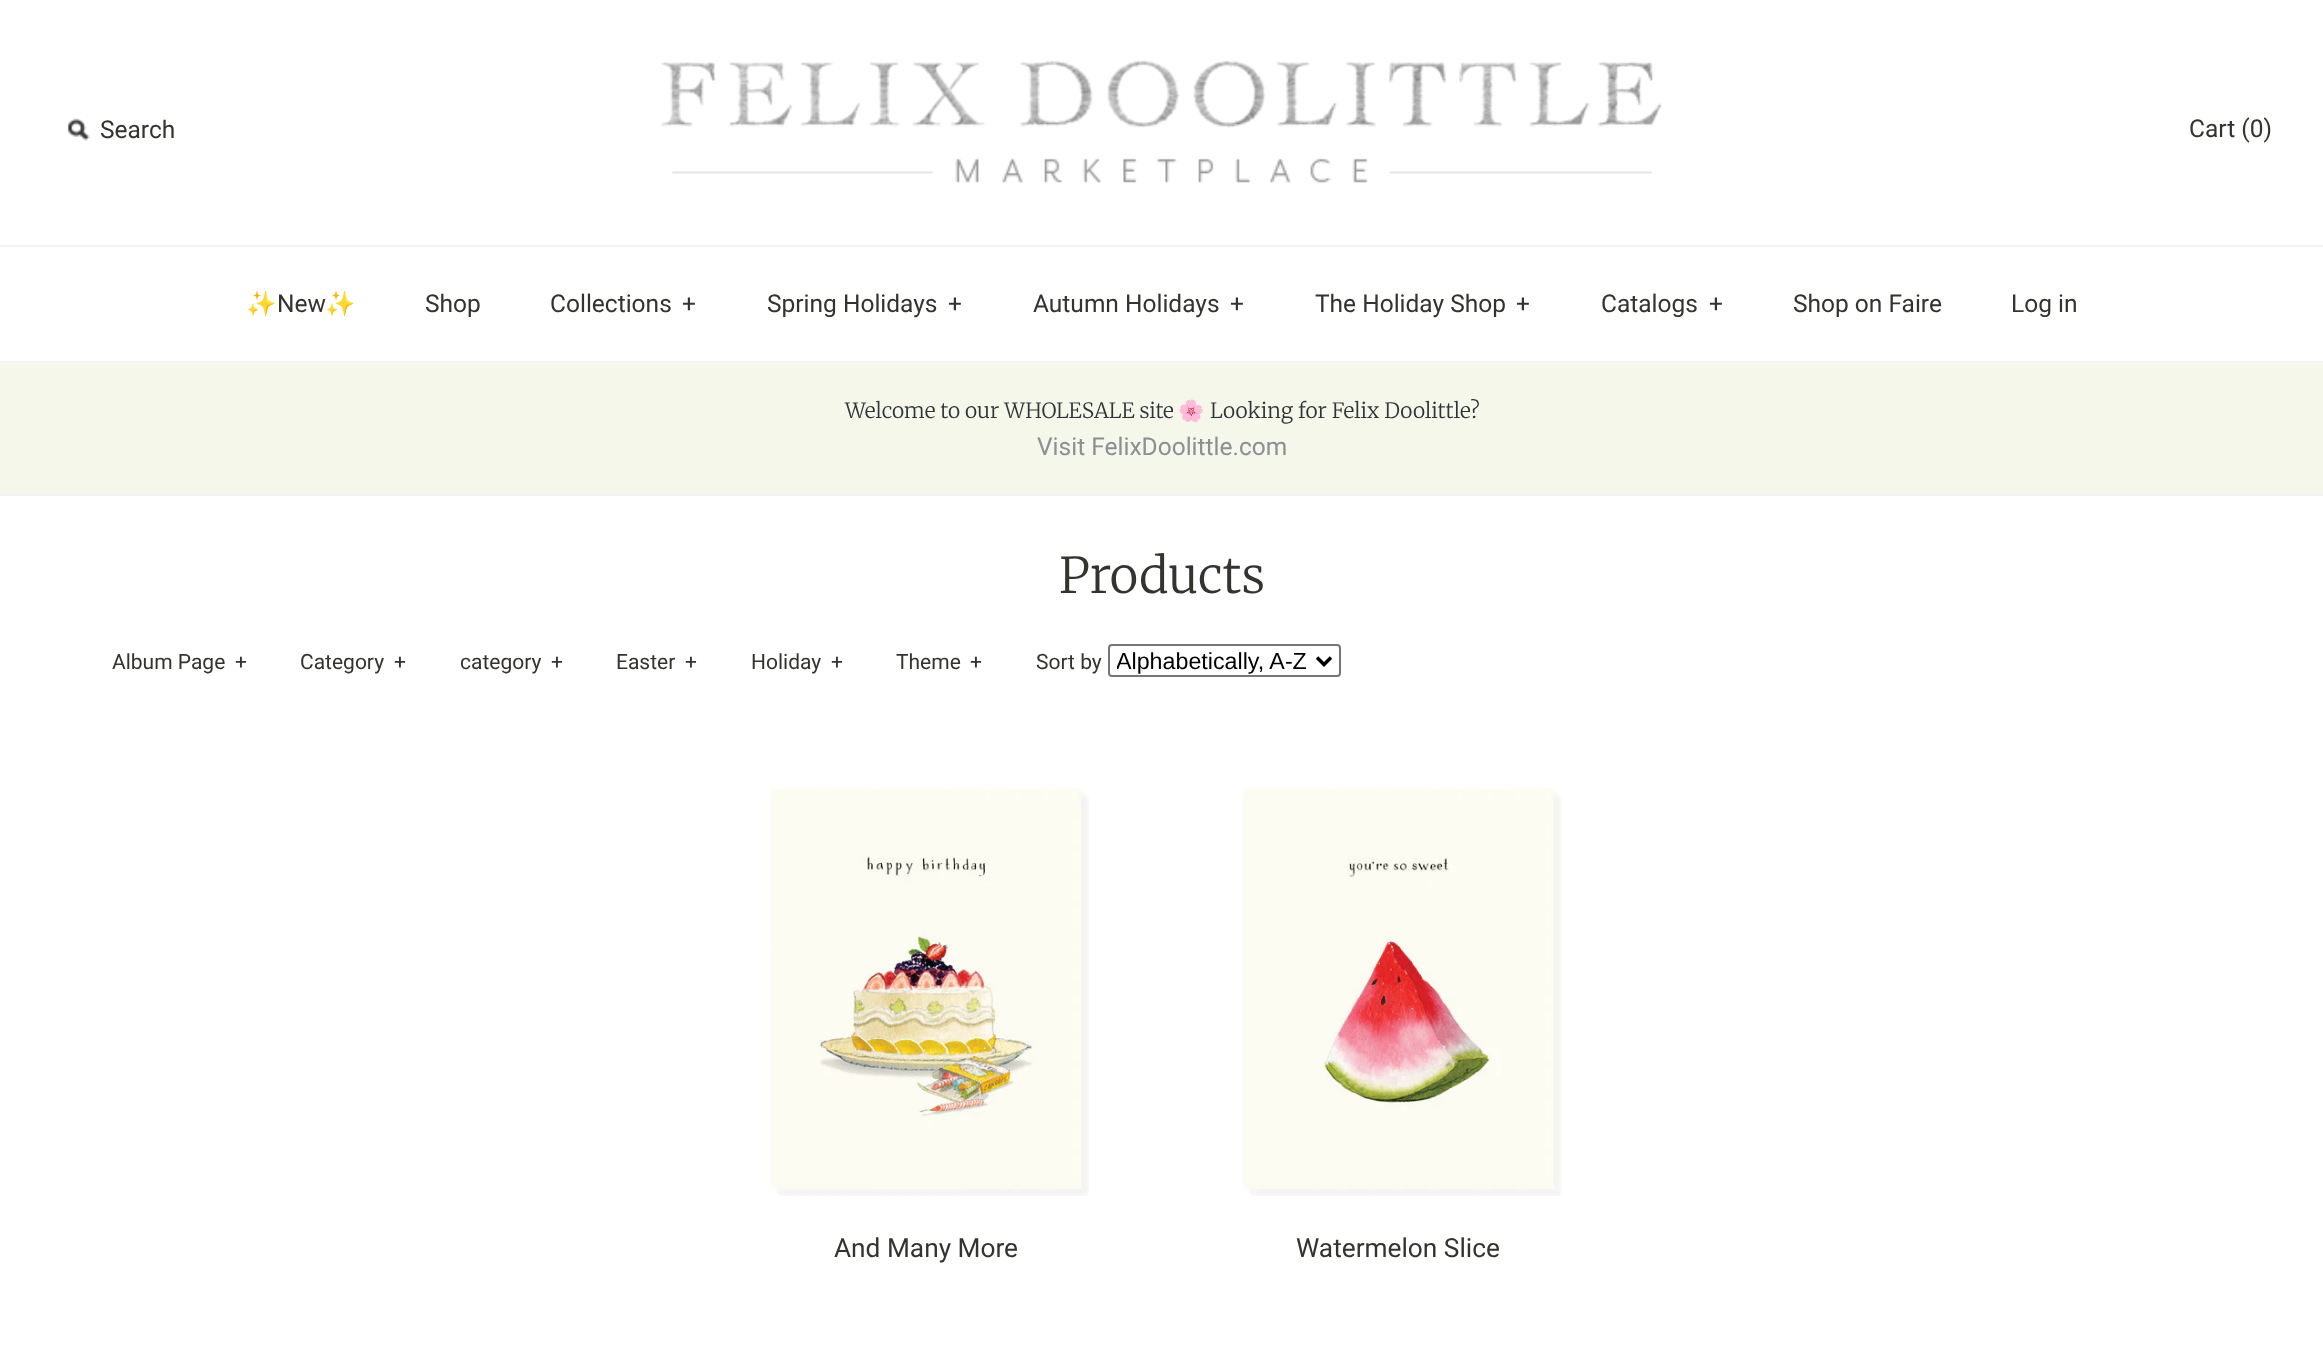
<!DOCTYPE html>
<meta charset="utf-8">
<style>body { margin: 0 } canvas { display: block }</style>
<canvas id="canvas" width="2323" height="1368"></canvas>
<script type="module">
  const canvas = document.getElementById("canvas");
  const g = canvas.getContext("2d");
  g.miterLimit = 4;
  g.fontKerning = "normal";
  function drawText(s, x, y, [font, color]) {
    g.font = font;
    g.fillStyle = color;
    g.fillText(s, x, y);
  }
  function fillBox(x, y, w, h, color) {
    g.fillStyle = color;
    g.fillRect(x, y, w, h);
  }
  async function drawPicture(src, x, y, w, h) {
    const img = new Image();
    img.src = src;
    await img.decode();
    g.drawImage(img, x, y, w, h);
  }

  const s1 = ["24.5px Roboto", "#353330"];
  const s2 = ["24.5px Noto Color Emoji", "#353330"];
  const s3 = ["300 21px Merriweather", "#2E3438"];
  const s4 = ["21px Noto Color Emoji", "#2E3438"];
  const s5 = ["24.5px Roboto", "#8A8F93"];
  const s6 = ["300 49px Merriweather", "#353330"];
  const s7 = ["21px Roboto", "#353330"];
  const s8 = ["23.25px Liberation Sans", "#000000"];
  const s9 = ["26.25px Roboto", "#353330"];

  fillBox(0, 0, 2323, 1368, "#F2F2F2");
  fillBox(0, 0, 2323, 245, "#FFFFFF");
  await drawPicture("pic1.png", 661, 60, 1001, 123);
  await drawPicture("pic2.png", 67, 118, 23, 23);
  drawText("Search", 100, 138, s1);
  drawText("Cart (0)", 2189, 137, s1);
  fillBox(0, 247, 2323, 114, "#FFFFFF");
  drawText("✨", 246, 312, s2);
  drawText("New", 277, 312, s1);
  drawText("✨", 325, 312, s2);
  drawText("Shop", 425, 312, s1);
  drawText("Collections", 550, 312, s1);
  drawText("+", 682, 312, s1);
  drawText("Spring Holidays", 767, 312, s1);
  drawText("+", 948, 312, s1);
  drawText("Autumn Holidays", 1033, 312, s1);
  drawText("+", 1230, 312, s1);
  drawText("The Holiday Shop", 1315, 312, s1);
  drawText("+", 1516, 312, s1);
  drawText("Catalogs", 1601, 312, s1);
  drawText("+", 1709, 312, s1);
  drawText("Shop on Faire", 1793, 312, s1);
  drawText("Log in", 2011, 312, s1);
  fillBox(0, 496, 2323, 872, "#FFFFFF");
  fillBox(0, 362, 2323, 132, "#F6F7EB");
  drawText("Welcome to our WHOLESALE site", 845, 418, s3);
  drawText("🌸", 1178, 418, s4);
  drawText("Looking for Felix Doolittle?", 1210, 418, s3);
  drawText("Visit FelixDoolittle.com", 1037, 455, s5);
  drawText("Products", 1059, 593, s6);
  drawText("Album Page", 112, 669, s7);
  drawText("+", 235, 669, s7);
  drawText("Category", 300, 669, s7);
  drawText("+", 394, 669, s7);
  drawText("category", 460, 669, s7);
  drawText("+", 551, 669, s7);
  drawText("Easter", 616, 669, s7);
  drawText("+", 685, 669, s7);
  drawText("Holiday", 751, 669, s7);
  drawText("+", 831, 669, s7);
  drawText("Theme", 896, 669, s7);
  drawText("+", 970, 669, s7);
  drawText("Sort by", 1036, 669, s7);
  g.beginPath();
  g.roundRect(1109, 645, 231, 31, 3);
  g.strokeStyle = "#767676";
  g.lineWidth = 2;
  g.stroke();
  g.beginPath();
  g.moveTo(1317, 657.5);
  g.lineTo(1324, 664.5);
  g.lineTo(1331, 657.5);
  g.strokeStyle = "#000000";
  g.lineWidth = 3.5;
  g.stroke();
  g.save();
  g.beginPath();
  g.rect(1117, 646, 194, 30);
  g.clip();
  drawText("Alphabetically, A-Z", 1116, 669, s8);
  g.restore();
  await drawPicture("pic3.png", 765, 785, 324, 411);
  drawText("And Many More", 834, 1257, s9);
  await drawPicture("pic4.png", 1238, 785, 324, 411);
  drawText("Watermelon Slice", 1296, 1257, s9);
</script>
